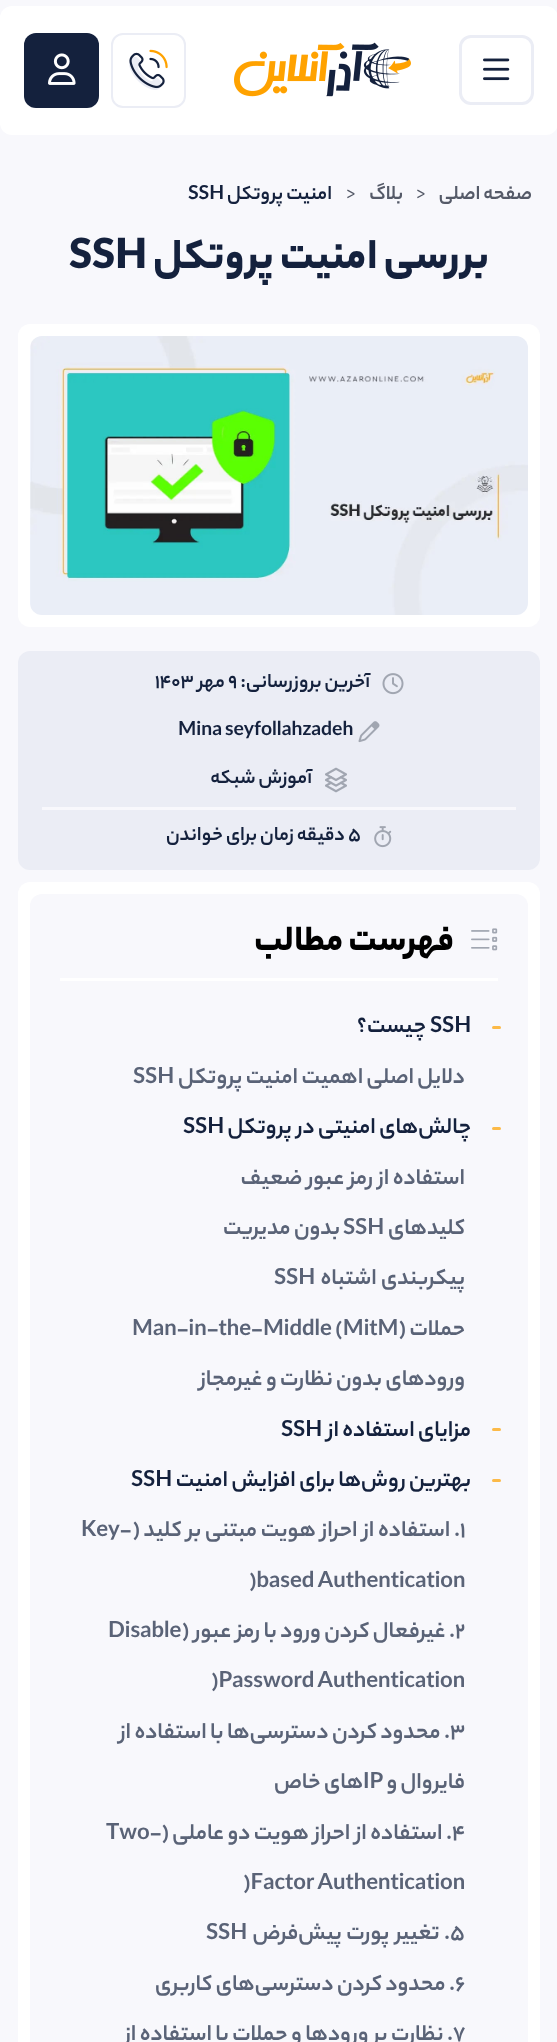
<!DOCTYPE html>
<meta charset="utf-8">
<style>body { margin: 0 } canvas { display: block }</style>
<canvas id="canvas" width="557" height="2042"></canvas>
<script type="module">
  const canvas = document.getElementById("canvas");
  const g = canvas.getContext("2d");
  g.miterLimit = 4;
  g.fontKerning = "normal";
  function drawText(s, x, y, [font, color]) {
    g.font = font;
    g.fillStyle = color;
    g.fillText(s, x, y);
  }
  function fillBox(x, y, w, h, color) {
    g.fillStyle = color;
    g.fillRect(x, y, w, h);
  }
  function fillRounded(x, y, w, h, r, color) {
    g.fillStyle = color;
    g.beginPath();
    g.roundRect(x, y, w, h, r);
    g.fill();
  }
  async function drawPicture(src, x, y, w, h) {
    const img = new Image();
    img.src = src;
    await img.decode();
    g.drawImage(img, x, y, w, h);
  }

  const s1 = ["bold 21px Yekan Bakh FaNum", "#555A68"];
  const s2 = ["21px Yekan Bakh FaNum", "#555A68"];
  const s3 = ["bold 21px Yekan Bakh FaNum", "#14213D"];
  const s4 = ["900 45px Yekan Bakh FaNum", "#14213D"];
  const s5 = ["900 37.5px Yekan Bakh FaNum", "#000000"];
  const s6 = ["bold 24px Yekan Bakh FaNum", "#14213D"];
  const s7 = ["bold 24px Yekan Bakh FaNum", "#5A6377"];

  fillBox(0, 0, 557, 2042, "#F8F8FC");
  fillRounded(0, 6, 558, 129, 12, "#FFFFFF");
  g.beginPath();
  g.roundRect(460.5, 36.5, 72, 67, 10.5);
  g.strokeStyle = "#EBEDF5";
  g.lineWidth = 3;
  g.stroke();
  await drawPicture("pic1.png", 483, 58, 27, 23);
  await drawPicture("pic2.png", 234, 42, 177, 55);
  g.beginPath();
  g.roundRect(112, 34, 73, 73, 11);
  g.lineWidth = 2;
  g.stroke();
  await drawPicture("pic3.png", 129, 49, 39, 41);
  fillRounded(24, 33, 75, 75, 12, "#14213D");
  await drawPicture("pic4.png", 48, 53, 28, 32);
  g.direction = "rtl";
  drawText("صفحه اصلی", 532, 199, s1);
  g.direction = "ltr";
  drawText(">", 416, 198, s2);
  g.direction = "rtl";
  drawText("بلاگ", 403, 199, s1);
  g.direction = "ltr";
  drawText(">", 346, 198, s2);
  g.direction = "rtl";
  drawText("امنیت پروتکل", 332, 199, s3);
  g.direction = "ltr";
  drawText("SSH", 188, 199, s3);
  g.direction = "rtl";
  drawText("بررسی امنیت پروتکل", 489, 268, s4);
  g.direction = "ltr";
  drawText("SSH", 69, 268, s4);
  fillRounded(18, 324, 522, 303, 12, "#FFFFFF");
  await drawPicture("pic5.png", 30, 336, 498, 279);
  fillRounded(18, 651, 522, 219, 12, "#EBEDF5");
  await drawPicture("pic6.png", 382, 673, 22, 22);
  g.direction = "rtl";
  drawText("آخرین بروزرسانی:", 370, 687, s3);
  g.direction = "ltr";
  drawText("۹", 228, 687, s3);
  g.direction = "rtl";
  drawText("مهر", 225, 687, s3);
  g.direction = "ltr";
  drawText("۱۴۰۳", 155, 687, s3);
  await drawPicture("pic7.png", 358, 721, 22, 22);
  drawText("Mina seyfollahzadeh", 178, 735, s3);
  await drawPicture("pic8.png", 325, 767, 22, 26);
  g.direction = "rtl";
  drawText("آموزش شبکه", 312, 783, s3);
  fillBox(42, 807, 474, 3, "#F8F8FC");
  await drawPicture("pic9.png", 374, 826, 18, 22);
  g.direction = "ltr";
  drawText("5", 348, 840, s3);
  g.direction = "rtl";
  drawText("دقیقه زمان برای خواندن", 345, 840, s3);
  fillRounded(18, 882, 522, 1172, 12, "#FFFFFF");
  fillRounded(30, 894, 498, 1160, 12, "#F8F8FC");
  fillBox(60, 978, 438, 3, "#FFFFFF");
  await drawPicture("pic10.png", 471, 928, 27, 23);
  drawText("فهرست مطالب", 454, 950, s5);
  fillRounded(492, 1026, 9, 3, 1.5, "#FCBA48");
  g.direction = "ltr";
  drawText("SSH", 430, 1032, s6);
  g.direction = "rtl";
  drawText("چیست؟", 426, 1032, s6);
  drawText("دلایل اصلی اهمیت امنیت پروتکل", 465, 1083, s7);
  g.direction = "ltr";
  drawText("SSH", 133, 1083, s7);
  fillRounded(492, 1127, 9, 3, 1.5, "#FCBA48");
  g.direction = "rtl";
  drawText("چالش‌های امنیتی در پروتکل", 471, 1133, s6);
  g.direction = "ltr";
  drawText("SSH", 183, 1133, s6);
  g.direction = "rtl";
  drawText("استفاده از رمز عبور ضعیف", 465, 1184, s7);
  drawText("کلیدهای", 465, 1234, s7);
  g.direction = "ltr";
  drawText("SSH", 343, 1234, s7);
  g.direction = "rtl";
  drawText("بدون مدیریت", 340, 1234, s7);
  g.wordSpacing = "1px";
  drawText("پیکربندی اشتباه", 465, 1284, s7);
  g.wordSpacing = "0px";
  g.direction = "ltr";
  drawText("SSH", 274, 1284, s7);
  g.direction = "rtl";
  drawText("حملات", 465, 1335, s7);
  g.direction = "ltr";
  drawText("Man-in-the-Middle (MitM)", 132, 1335, s7);
  g.direction = "rtl";
  drawText("ورودهای بدون نظارت و غیرمجاز", 465, 1385, s7);
  fillRounded(492, 1428, 9, 3, 1.5, "#FCBA48");
  drawText("مزایای استفاده از", 471, 1436, s6);
  g.direction = "ltr";
  drawText("SSH", 281, 1436, s6);
  fillRounded(492, 1479, 9, 3, 1.5, "#FCBA48");
  g.direction = "rtl";
  drawText("بهترین روش‌ها برای افزایش امنیت", 471, 1486, s6);
  g.direction = "ltr";
  drawText("SSH", 131, 1486, s6);
  drawText("1", 460, 1536, s7);
  g.wordSpacing = "0.25px";
  g.direction = "rtl";
  drawText(". استفاده از احراز هویت مبتنی بر کلید (", 460, 1536, s7);
  g.wordSpacing = "0px";
  g.direction = "ltr";
  drawText("Key-", 81, 1536, s7);
  drawText(")based Authentication", 249, 1587, s7);
  drawText("2", 455, 1637, s7);
  g.direction = "rtl";
  drawText(". غیرفعال کردن ورود با رمز عبور (", 455, 1637, s7);
  g.direction = "ltr";
  drawText("Disable", 108, 1637, s7);
  drawText(")Password Authentication", 211, 1687, s7);
  drawText("3", 450, 1738, s7);
  g.direction = "rtl";
  drawText(". محدود کردن دسترسی‌ها با استفاده از", 450, 1738, s7);
  drawText("فایروال و", 465, 1788, s7);
  g.direction = "ltr";
  drawText("IP", 363, 1788, s7);
  g.direction = "rtl";
  drawText("های خاص", 363, 1788, s7);
  g.direction = "ltr";
  drawText("4", 452, 1839, s7);
  g.direction = "rtl";
  drawText(". استفاده از احراز هویت دو عاملی (", 452, 1839, s7);
  g.direction = "ltr";
  drawText("Two-", 106, 1839, s7);
  drawText(")Factor Authentication", 243, 1889, s7);
  drawText("5", 450, 1939, s7);
  g.wordSpacing = "1px";
  g.direction = "rtl";
  drawText(". تغییر پورت پیش‌فرض", 450, 1939, s7);
  g.wordSpacing = "0px";
  g.direction = "ltr";
  drawText("SSH", 206, 1939, s7);
  drawText("6", 455, 1990, s7);
  g.direction = "rtl";
  drawText(". محدود کردن دسترسی‌های کاربری", 455, 1990, s7);
  g.direction = "ltr";
  drawText("7", 453, 2040, s7);
  g.direction = "rtl";
  drawText(". نظارت بر ورودها و حملات با استفاده از", 453, 2040, s7);
</script>
